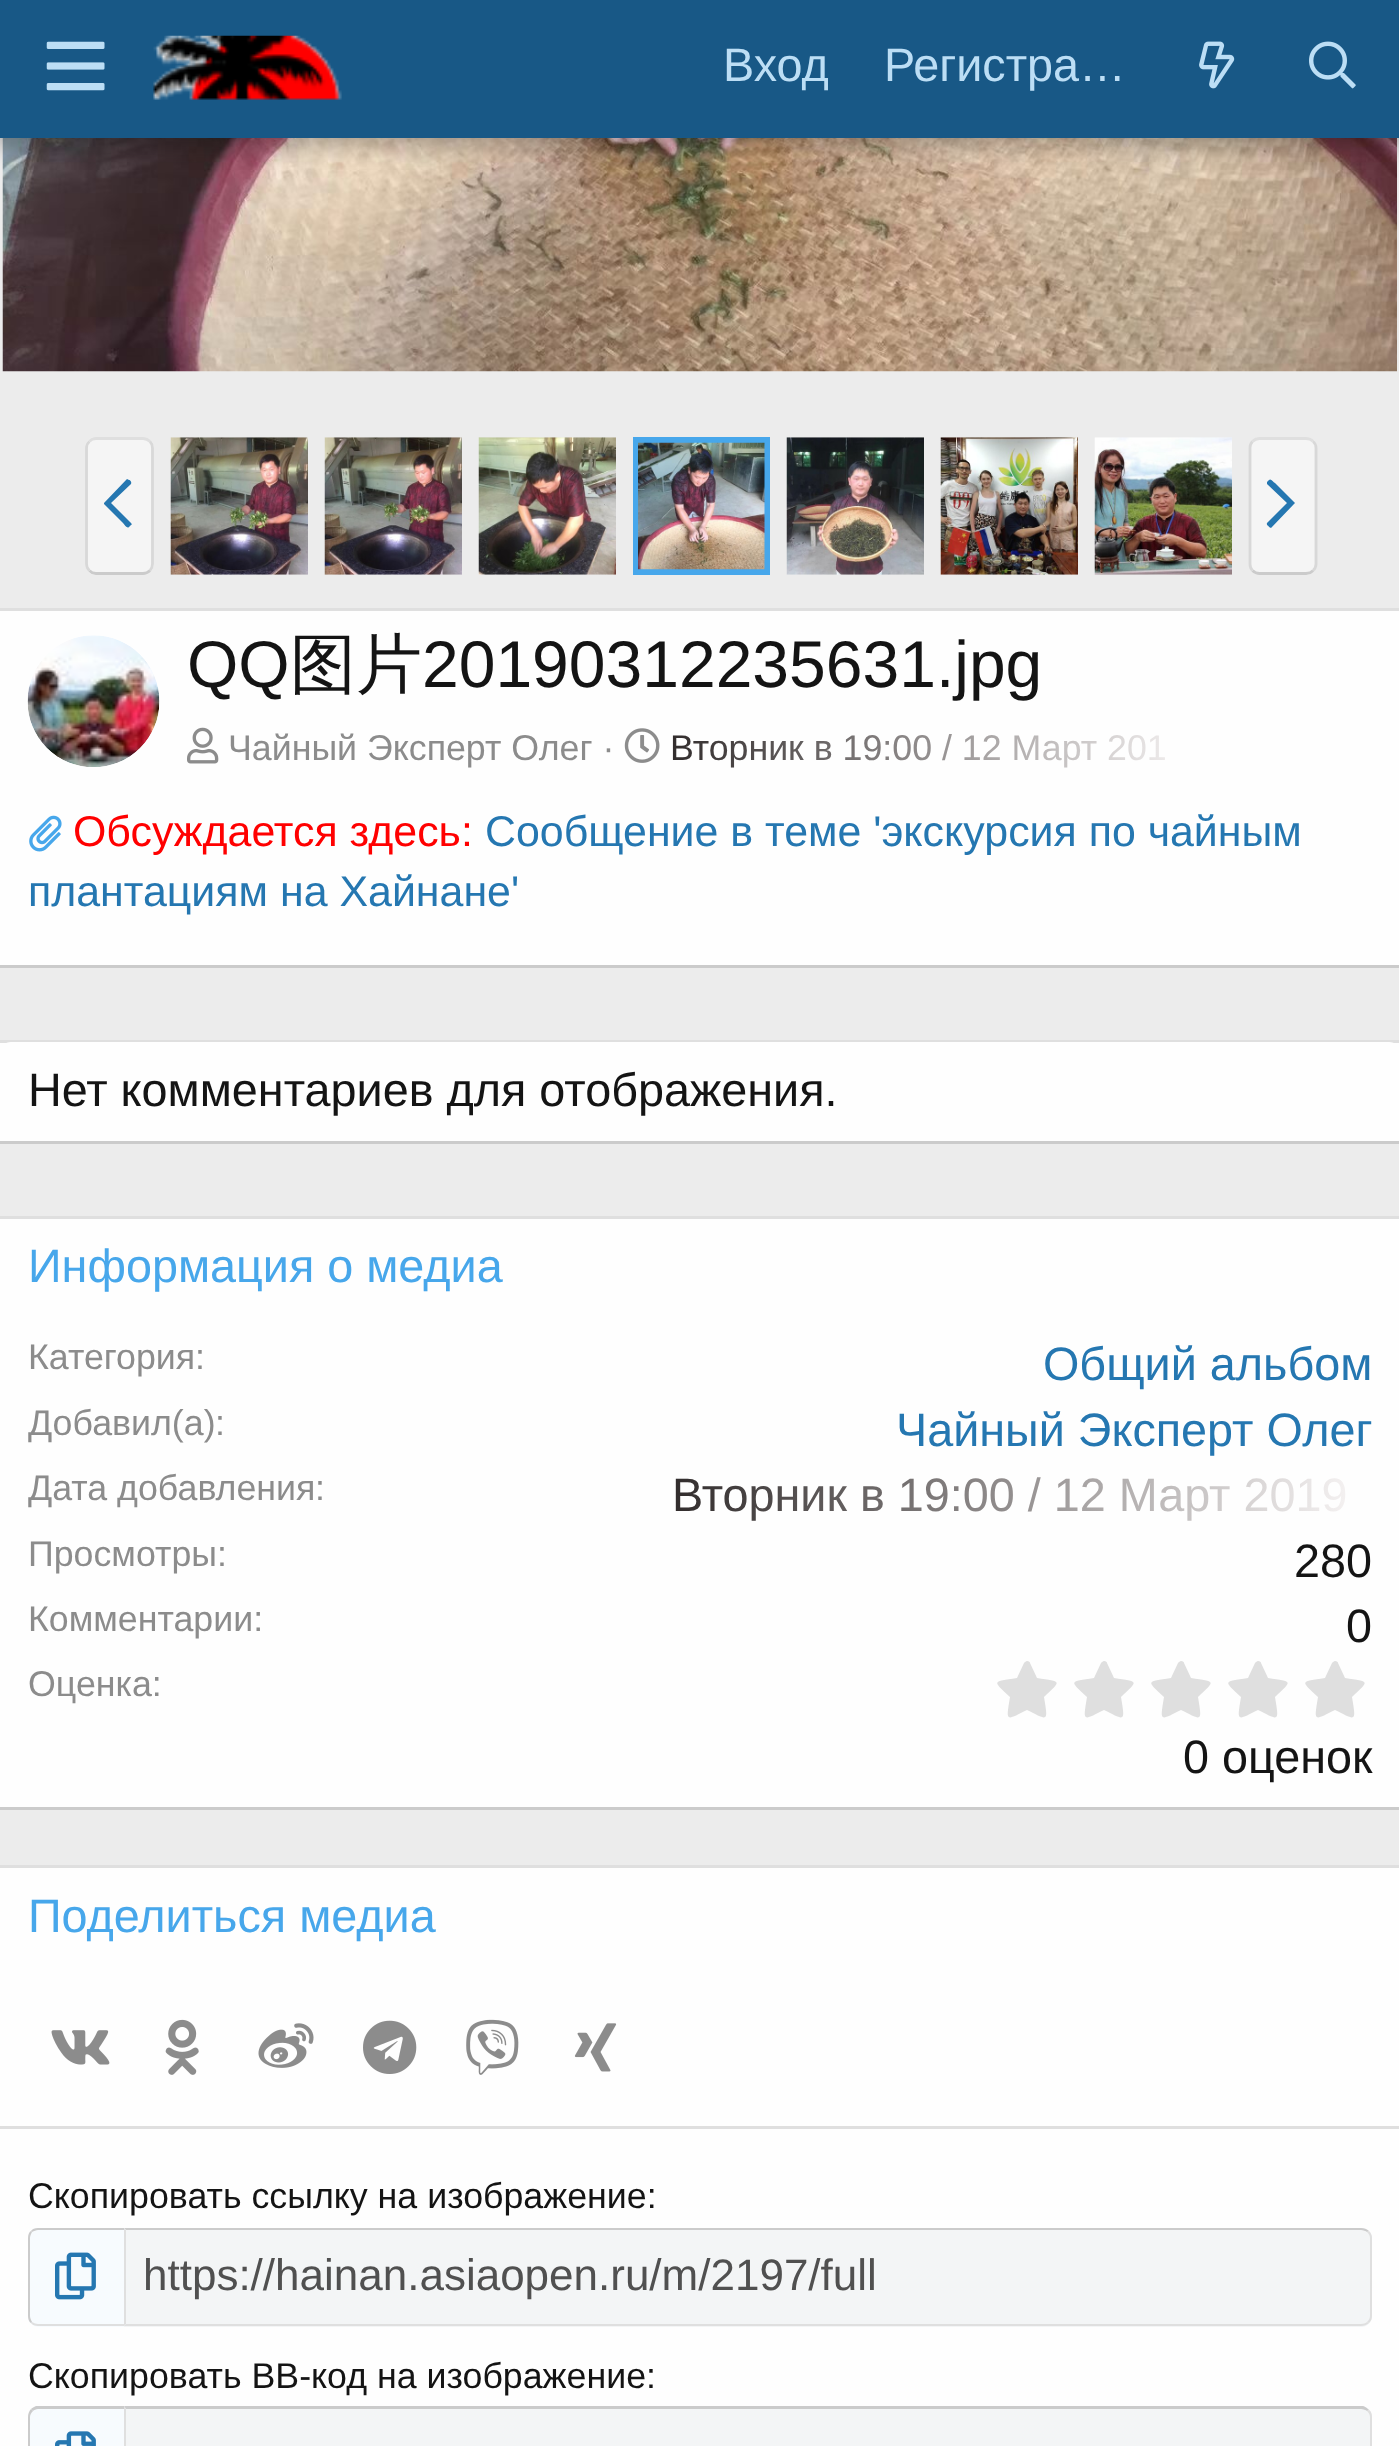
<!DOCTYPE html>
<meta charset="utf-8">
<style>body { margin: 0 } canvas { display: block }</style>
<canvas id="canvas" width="1399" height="2446"></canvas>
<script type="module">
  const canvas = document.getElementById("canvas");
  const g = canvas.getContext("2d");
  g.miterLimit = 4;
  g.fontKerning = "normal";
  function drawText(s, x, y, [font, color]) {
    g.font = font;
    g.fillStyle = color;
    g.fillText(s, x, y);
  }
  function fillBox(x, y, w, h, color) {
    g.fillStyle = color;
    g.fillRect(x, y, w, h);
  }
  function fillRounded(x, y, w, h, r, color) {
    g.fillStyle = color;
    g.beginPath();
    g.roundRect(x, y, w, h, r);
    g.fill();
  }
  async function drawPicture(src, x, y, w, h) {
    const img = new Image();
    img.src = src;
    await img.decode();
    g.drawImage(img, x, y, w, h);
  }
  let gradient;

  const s1 = ["46.75px Liberation Sans", "#BCDEF5"];
  const s2 = ["66px Liberation Sans", "#141414"];
  const s3 = ["500 66px WenQuanYi Zen Hei", "#141414"];
  const s4 = ["35.75px Liberation Sans", "#8C8C8C"];
  const s5 = ["42.9px Liberation Sans", "#FF0000"];
  const s6 = ["42.9px Liberation Sans", "#2577B1"];
  const s7 = ["46.75px Liberation Sans", "#141414"];
  const s8 = ["46.75px Liberation Sans", "#47A7EB"];
  const s9 = ["46.75px Liberation Sans", "#2577B1"];
  const s10 = ["35.75px Liberation Sans", "#141414"];
  const s11 = ["44px Liberation Sans", "#505050"];

  fillBox(0, 0, 1399, 2446, "#ECECEC");
  await drawPicture("pic5.png", 2, 138, 1395, 234);
  g.fillStyle = "rgba(0, 0, 0, 0.3)";
  g.filter = "blur(11px)";
  g.beginPath();
  g.rect(-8, -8, 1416, 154);
  g.fill();
  g.filter = "none";
  fillBox(0, 0, 1399, 138, "#185886");
  await drawPicture("pic1.png", 46, 41, 59, 50);
  await drawPicture("pic2.png", 153, 35, 189, 65);
  drawText("Вход", 723, 81, s1);
  drawText("Регистра…", 884, 81, s1);
  await drawPicture("pic3.png", 1199, 41, 36, 48);
  await drawPicture("pic4.png", 1309, 41, 47, 48);
  fillRounded(85, 437, 69, 138, 11, "#F5F5F5");
  g.beginPath();
  g.moveTo(89.5, 441.5);
  g.bezierCurveTo(91, 439.5, 93.5, 438.5, 96, 438.5);
  g.lineTo(143, 438.5);
  g.bezierCurveTo(145.5, 438.5, 148, 439.5, 150, 441.5);
  g.strokeStyle = "#DFDFDF";
  g.lineWidth = 2.8;
  g.stroke();
  g.beginPath();
  g.moveTo(150, 441.5);
  g.bezierCurveTo(151.5, 443, 152.5, 445.5, 152.5, 448);
  g.lineTo(152.5, 564);
  g.bezierCurveTo(152.5, 566.5, 151.5, 569, 150, 570.5);
  g.strokeStyle = "#D8D8D8";
  g.stroke();
  g.beginPath();
  g.moveTo(150, 570.5);
  g.bezierCurveTo(148, 572.5, 145.5, 573.5, 143, 573.5);
  g.lineTo(96, 573.5);
  g.bezierCurveTo(93.5, 573.5, 91, 572.5, 89.5, 570.5);
  g.strokeStyle = "#CBCBCB";
  g.stroke();
  g.beginPath();
  g.moveTo(89.5, 570.5);
  g.bezierCurveTo(87.5, 569, 86.5, 566.5, 86.5, 564);
  g.lineTo(86.5, 448);
  g.bezierCurveTo(86.5, 445.5, 87.5, 443, 89.5, 441.5);
  g.strokeStyle = "#D8D8D8";
  g.stroke();
  g.fillStyle = "#2577B1";
  g.beginPath();
  g.moveTo(129, 527);
  g.bezierCurveTo(127, 529, 125, 525, 123, 523);
  g.lineTo(104, 504);
  g.lineTo(104, 503);
  g.lineTo(127, 479);
  g.lineTo(129, 480);
  g.bezierCurveTo(130, 480, 132, 482, 131, 484);
  g.lineTo(111, 503);
  g.lineTo(131, 523);
  g.bezierCurveTo(132, 524, 132, 525, 131, 525);
  g.closePath();
  g.fill();
  await drawPicture("pic6.png", 170, 437, 138, 138);
  await drawPicture("pic7.png", 324, 437, 138, 138);
  await drawPicture("pic8.png", 478, 437, 138, 138);
  g.strokeStyle = "#47A7EB";
  g.lineWidth = 6;
  g.strokeRect(636, 440, 131, 132);
  await drawPicture("pic9.png", 638, 442, 127, 128);
  await drawPicture("pic10.png", 786, 437, 138, 138);
  await drawPicture("pic11.png", 940, 437, 138, 138);
  await drawPicture("pic12.png", 1094, 437, 138, 138);
  fillRounded(1249, 437, 68, 138, 11, "#F5F5F5");
  g.beginPath();
  g.moveTo(1252.5, 441.5);
  g.bezierCurveTo(1254.5, 439.5, 1257, 438.5, 1259.5, 438.5);
  g.lineTo(1306, 438.5);
  g.bezierCurveTo(1309, 438.5, 1311.5, 439.5, 1313, 441.5);
  g.strokeStyle = "#DFDFDF";
  g.lineWidth = 2.8;
  g.stroke();
  g.beginPath();
  g.moveTo(1313, 441.5);
  g.bezierCurveTo(1315, 443, 1316, 445.5, 1316, 448);
  g.lineTo(1316, 564);
  g.bezierCurveTo(1316, 566.5, 1315, 569, 1313, 570.5);
  g.strokeStyle = "#D8D8D8";
  g.stroke();
  g.beginPath();
  g.moveTo(1313, 570.5);
  g.bezierCurveTo(1311.5, 572.5, 1309, 573.5, 1306, 573.5);
  g.lineTo(1259.5, 573.5);
  g.bezierCurveTo(1257, 573.5, 1254.5, 572.5, 1252.5, 570.5);
  g.strokeStyle = "#CBCBCB";
  g.stroke();
  g.beginPath();
  g.moveTo(1252.5, 570.5);
  g.bezierCurveTo(1251, 569, 1250, 566.5, 1250, 564);
  g.lineTo(1250, 448);
  g.bezierCurveTo(1250, 445.5, 1251, 443, 1252.5, 441.5);
  g.strokeStyle = "#D8D8D8";
  g.stroke();
  g.fillStyle = "#2577B1";
  g.beginPath();
  g.moveTo(1269, 480);
  g.bezierCurveTo(1271, 478, 1273, 482, 1275, 483);
  g.lineTo(1295, 503);
  g.lineTo(1294, 504);
  g.lineTo(1271, 528);
  g.lineTo(1269, 527);
  g.bezierCurveTo(1269, 526, 1266, 525, 1267, 523);
  g.lineTo(1287, 503);
  g.lineTo(1267, 484);
  g.bezierCurveTo(1267, 483, 1267, 482, 1267, 482);
  g.closePath();
  g.fill();
  fillBox(0, 611, 1399, 354, "#FEFEFE");
  fillBox(0, 608, 1399, 3, "#DFDFDF");
  fillBox(0, 965, 1399, 3, "#CBCBCB");
  await drawPicture("pic13.png", 27, 635, 133, 132);
  drawText("QQ", 187, 687, s2);
  drawText("图片", 290, 687, s3);
  drawText("20190312235631.jpg", 422, 687, s2);
  await drawPicture("pic14.png", 187, 727, 32, 37);
  drawText("Чайный Эксперт Олег ·", 228, 760, s4);
  await drawPicture("pic15.png", 624, 728, 36, 35);
  gradient = g.createLinearGradient(670, 748, 1205, 748);
  gradient.addColorStop(0, "#312C2C");
  gradient.addColorStop(1, "#FBF8F8");
  g.fillStyle = gradient;
  g.fillText("Вторник в 19:00 / 12 Март 201", 670, 760);
  await drawPicture("pic16.png", 29, 815, 33, 37);
  drawText("Обсуждается здесь:", 73, 846, s5);
  drawText("Сообщение в теме 'экскурсия по чайным", 485, 846, s6);
  drawText("плантациям на Хайнане'", 28, 906, s6);
  fillBox(0, 1043, 1399, 98, "#FEFEFE");
  fillBox(0, 1040, 1399, 3, "#DFDFDF");
  fillBox(0, 1141, 1399, 3, "#CBCBCB");
  fillRounded(0, 1042, 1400, 99, 11, "#FEFEFE");
  drawText("Нет комментариев для отображения.", 28, 1106, s7);
  fillBox(0, 1219, 1399, 588, "#FEFEFE");
  fillBox(0, 1216, 1399, 3, "#DFDFDF");
  fillBox(0, 1807, 1399, 3, "#CBCBCB");
  drawText("Информация о медиа", 28, 1282, s8);
  drawText("Категория:", 28, 1369, s4);
  drawText("Общий альбом", 1043, 1380, s9);
  g.save();
  g.beginPath();
  g.rect(28, 1400, 1344, 66);
  g.clip();
  drawText("Добавил(а)", 28, 1435, s4);
  g.restore();
  drawText(":", 215, 1435, s4);
  drawText("Чайный Эксперт Олег", 896, 1446, s9);
  g.save();
  g.beginPath();
  g.rect(28, 1466, 1344, 63);
  g.clip();
  drawText("Дата добавления", 28, 1500, s4);
  g.restore();
  drawText(":", 315, 1500, s4);
  g.font = "46.75px Liberation Sans";
  gradient = g.createLinearGradient(672, 1496, 1372, 1496);
  gradient.addColorStop(0, "#312C2C");
  gradient.addColorStop(1, "#FBF8F8");
  g.fillStyle = gradient;
  g.fillText("Вторник в 19:00 / 12 Март 2019", 672, 1511);
  drawText("Просмотры:", 28, 1566, s4);
  drawText("280", 1294, 1577, s7);
  drawText("Комментарии:", 28, 1631, s4);
  drawText("0", 1346, 1642, s7);
  drawText("Оценка:", 28, 1696, s4);
  g.fillStyle = "#DFDFDF";
  g.beginPath();
  g.moveTo(1024, 1663);
  g.bezierCurveTo(1025, 1662, 1026, 1661, 1027, 1661);
  g.bezierCurveTo(1029, 1661, 1030, 1662, 1030, 1663);
  g.lineTo(1037, 1678);
  g.bezierCurveTo(1062, 1682, 1062, 1680, 1044, 1697);
  g.bezierCurveTo(1048, 1722, 1049, 1721, 1027, 1710);
  g.bezierCurveTo(1005, 1721, 1006, 1722, 1010, 1697);
  g.bezierCurveTo(992, 1680, 992, 1682, 1017, 1678);
  g.closePath();
  g.fill();
  g.beginPath();
  g.moveTo(1101, 1663);
  g.bezierCurveTo(1102, 1662, 1103, 1661, 1104, 1661);
  g.bezierCurveTo(1106, 1661, 1107, 1662, 1107, 1663);
  g.lineTo(1114, 1678);
  g.bezierCurveTo(1139, 1682, 1139, 1680, 1121, 1697);
  g.bezierCurveTo(1125, 1722, 1126, 1721, 1104, 1710);
  g.bezierCurveTo(1082, 1721, 1083, 1722, 1087, 1697);
  g.bezierCurveTo(1069, 1680, 1069, 1682, 1094, 1678);
  g.closePath();
  g.fill();
  g.beginPath();
  g.moveTo(1178, 1663);
  g.bezierCurveTo(1179, 1662, 1180, 1661, 1181, 1661);
  g.bezierCurveTo(1183, 1661, 1184, 1662, 1184, 1663);
  g.lineTo(1191, 1678);
  g.bezierCurveTo(1216, 1682, 1216, 1680, 1198, 1697);
  g.bezierCurveTo(1202, 1722, 1203, 1721, 1181, 1710);
  g.bezierCurveTo(1159, 1721, 1160, 1722, 1164, 1697);
  g.bezierCurveTo(1146, 1680, 1146, 1682, 1171, 1678);
  g.closePath();
  g.fill();
  g.beginPath();
  g.moveTo(1255, 1663);
  g.bezierCurveTo(1256, 1662, 1257, 1661, 1258, 1661);
  g.bezierCurveTo(1260, 1661, 1261, 1662, 1261, 1663);
  g.lineTo(1268, 1678);
  g.bezierCurveTo(1293, 1682, 1293, 1680, 1275, 1697);
  g.bezierCurveTo(1279, 1722, 1280, 1721, 1258, 1710);
  g.bezierCurveTo(1236, 1721, 1237, 1722, 1241, 1697);
  g.bezierCurveTo(1223, 1680, 1223, 1682, 1248, 1678);
  g.closePath();
  g.fill();
  g.beginPath();
  g.moveTo(1332, 1663);
  g.bezierCurveTo(1333, 1662, 1334, 1661, 1335, 1661);
  g.bezierCurveTo(1337, 1661, 1338, 1662, 1338, 1663);
  g.lineTo(1345, 1678);
  g.bezierCurveTo(1370, 1682, 1370, 1680, 1352, 1697);
  g.bezierCurveTo(1356, 1722, 1357, 1721, 1335, 1710);
  g.bezierCurveTo(1313, 1721, 1314, 1722, 1318, 1697);
  g.bezierCurveTo(1300, 1680, 1300, 1682, 1325, 1678);
  g.closePath();
  g.fill();
  drawText("0 оценок", 1183, 1773, s7);
  fillBox(0, 1868, 1399, 578, "#FEFEFE");
  fillBox(0, 1865, 1399, 3, "#DFDFDF");
  drawText("Поделиться медиа", 28, 1932, s8);
  await drawPicture("pic17.png", 51, 2030, 59, 35);
  await drawPicture("pic18.png", 165, 2019, 34, 56);
  await drawPicture("pic19.png", 258, 2023, 56, 45);
  await drawPicture("pic20.png", 363, 2020, 54, 54);
  await drawPicture("pic21.png", 466, 2019, 53, 56);
  await drawPicture("pic22.png", 574, 2023, 43, 49);
  fillBox(0, 2126, 1399, 3, "#DFDFDF");
  drawText("Скопировать ссылку на изображение:", 28, 2208, s10);
  g.fillStyle = "#F7FBFE";
  g.beginPath();
  g.roundRect(28, 2228, 96, 99, [11, 0, 0, 11]);
  g.fill();
  g.fillStyle = "#CBCBCB";
  g.beginPath();
  g.moveTo(38, 2228);
  g.lineTo(124, 2228);
  g.lineTo(124, 2230);
  g.lineTo(38, 2230);
  g.bezierCurveTo(36, 2230, 34, 2231, 32, 2232);
  g.lineTo(31, 2231);
  g.bezierCurveTo(32, 2229, 35, 2228, 38, 2228);
  g.closePath();
  g.fill();
  g.fillStyle = "#DFDFDF";
  g.beginPath();
  g.moveTo(124, 2326);
  g.lineTo(38, 2326);
  g.bezierCurveTo(35, 2326, 32, 2325, 31, 2323);
  g.lineTo(32, 2322);
  g.bezierCurveTo(34, 2323, 36, 2324, 38, 2324);
  g.lineTo(124, 2324);
  g.closePath();
  g.fill();
  g.fillStyle = "#CBCBCB";
  g.beginPath();
  g.moveTo(32, 2322);
  g.lineTo(31, 2323);
  g.bezierCurveTo(29, 2322, 28, 2319, 28, 2316);
  g.lineTo(28, 2238);
  g.bezierCurveTo(28, 2235, 29, 2232, 31, 2231);
  g.lineTo(32, 2232);
  g.bezierCurveTo(31, 2234, 30, 2236, 30, 2238);
  g.lineTo(30, 2316);
  g.bezierCurveTo(30, 2318, 31, 2320, 32, 2322);
  g.closePath();
  g.fill();
  await drawPicture("pic23.png", 55, 2252, 41, 48);
  g.fillStyle = "#F3F5F6";
  g.beginPath();
  g.roundRect(124, 2228, 1248, 99, [0, 11, 11, 0]);
  g.fill();
  g.fillStyle = "#CBCBCB";
  g.beginPath();
  g.moveTo(1369, 2231);
  g.bezierCurveTo(1367, 2229, 1364, 2228, 1361, 2228);
  g.lineTo(124, 2228);
  g.lineTo(126, 2230);
  g.lineTo(1361, 2230);
  g.bezierCurveTo(1363, 2230, 1366, 2231, 1367, 2232);
  g.closePath();
  g.fill();
  g.fillStyle = "#DFDFDF";
  g.beginPath();
  g.moveTo(1369, 2231);
  g.bezierCurveTo(1371, 2233, 1372, 2235, 1372, 2238);
  g.lineTo(1372, 2316);
  g.bezierCurveTo(1372, 2319, 1371, 2321, 1369, 2323);
  g.lineTo(1367, 2322);
  g.bezierCurveTo(1369, 2320, 1370, 2318, 1370, 2316);
  g.lineTo(1370, 2238);
  g.bezierCurveTo(1370, 2236, 1369, 2234, 1367, 2232);
  g.closePath();
  g.fill();
  g.beginPath();
  g.moveTo(1369, 2323);
  g.bezierCurveTo(1367, 2325, 1364, 2326, 1361, 2326);
  g.lineTo(124, 2326);
  g.lineTo(126, 2324);
  g.lineTo(1361, 2324);
  g.bezierCurveTo(1363, 2324, 1366, 2323, 1367, 2322);
  g.closePath();
  g.fill();
  g.beginPath();
  g.moveTo(124, 2228);
  g.lineTo(124, 2326);
  g.lineTo(126, 2324);
  g.lineTo(126, 2230);
  g.closePath();
  g.fill();
  drawText("https://hainan.asiaopen.ru/m/2197/full", 143, 2290, s11);
  drawText("Скопировать BB-код на изображение:", 28, 2388, s10);
  g.fillStyle = "#F7FBFE";
  g.beginPath();
  g.moveTo(39, 2406);
  g.lineTo(124, 2406);
  g.lineTo(124, 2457);
  g.lineTo(39, 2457);
  g.bezierCurveTo(33, 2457, 28, 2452, 28, 2446);
  g.lineTo(28, 2417);
  g.bezierCurveTo(28, 2411, 33, 2406, 39, 2406);
  g.closePath();
  g.fill();
  g.fillStyle = "#CBCBCB";
  g.beginPath();
  g.moveTo(38, 2409);
  g.bezierCurveTo(36, 2409, 34, 2410, 33, 2411);
  g.lineTo(31, 2409);
  g.bezierCurveTo(32, 2408, 34, 2407, 36, 2406);
  g.lineTo(124, 2406);
  g.lineTo(124, 2409);
  g.closePath();
  g.fill();
  g.beginPath();
  g.moveTo(31, 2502);
  g.bezierCurveTo(29, 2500, 28, 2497, 28, 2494);
  g.lineTo(28, 2417);
  g.bezierCurveTo(28, 2414, 29, 2411, 31, 2409);
  g.lineTo(33, 2411);
  g.bezierCurveTo(31, 2413, 30, 2415, 30, 2417);
  g.lineTo(30, 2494);
  g.bezierCurveTo(30, 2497, 31, 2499, 33, 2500);
  g.closePath();
  g.fill();
  await drawPicture("pic24.png", 55, 2431, 41, 15);
  g.fillStyle = "#F3F5F6";
  g.beginPath();
  g.moveTo(124, 2406);
  g.lineTo(1361, 2406);
  g.bezierCurveTo(1367, 2406, 1372, 2411, 1372, 2417);
  g.lineTo(1372, 2446);
  g.bezierCurveTo(1372, 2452, 1367, 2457, 1361, 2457);
  g.lineTo(124, 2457);
  g.closePath();
  g.fill();
  g.fillStyle = "#CBCBCB";
  g.beginPath();
  g.moveTo(124, 2406);
  g.lineTo(1363, 2406);
  g.bezierCurveTo(1366, 2407, 1367, 2408, 1369, 2410);
  g.lineTo(1367, 2411);
  g.bezierCurveTo(1366, 2410, 1363, 2409, 1361, 2409);
  g.lineTo(126, 2409);
  g.closePath();
  g.fill();
  g.fillStyle = "#DFDFDF";
  g.beginPath();
  g.moveTo(1369, 2410);
  g.bezierCurveTo(1371, 2411, 1372, 2414, 1372, 2417);
  g.lineTo(1372, 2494);
  g.bezierCurveTo(1372, 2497, 1371, 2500, 1369, 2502);
  g.lineTo(1367, 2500);
  g.bezierCurveTo(1369, 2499, 1370, 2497, 1370, 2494);
  g.lineTo(1370, 2417);
  g.bezierCurveTo(1370, 2415, 1369, 2413, 1367, 2411);
  g.closePath();
  g.fill();
  g.beginPath();
  g.moveTo(126, 2409);
  g.lineTo(124, 2406);
  g.lineTo(124, 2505);
  g.lineTo(127, 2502);
  g.lineTo(126, 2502);
  g.closePath();
  g.fill();
</script>
